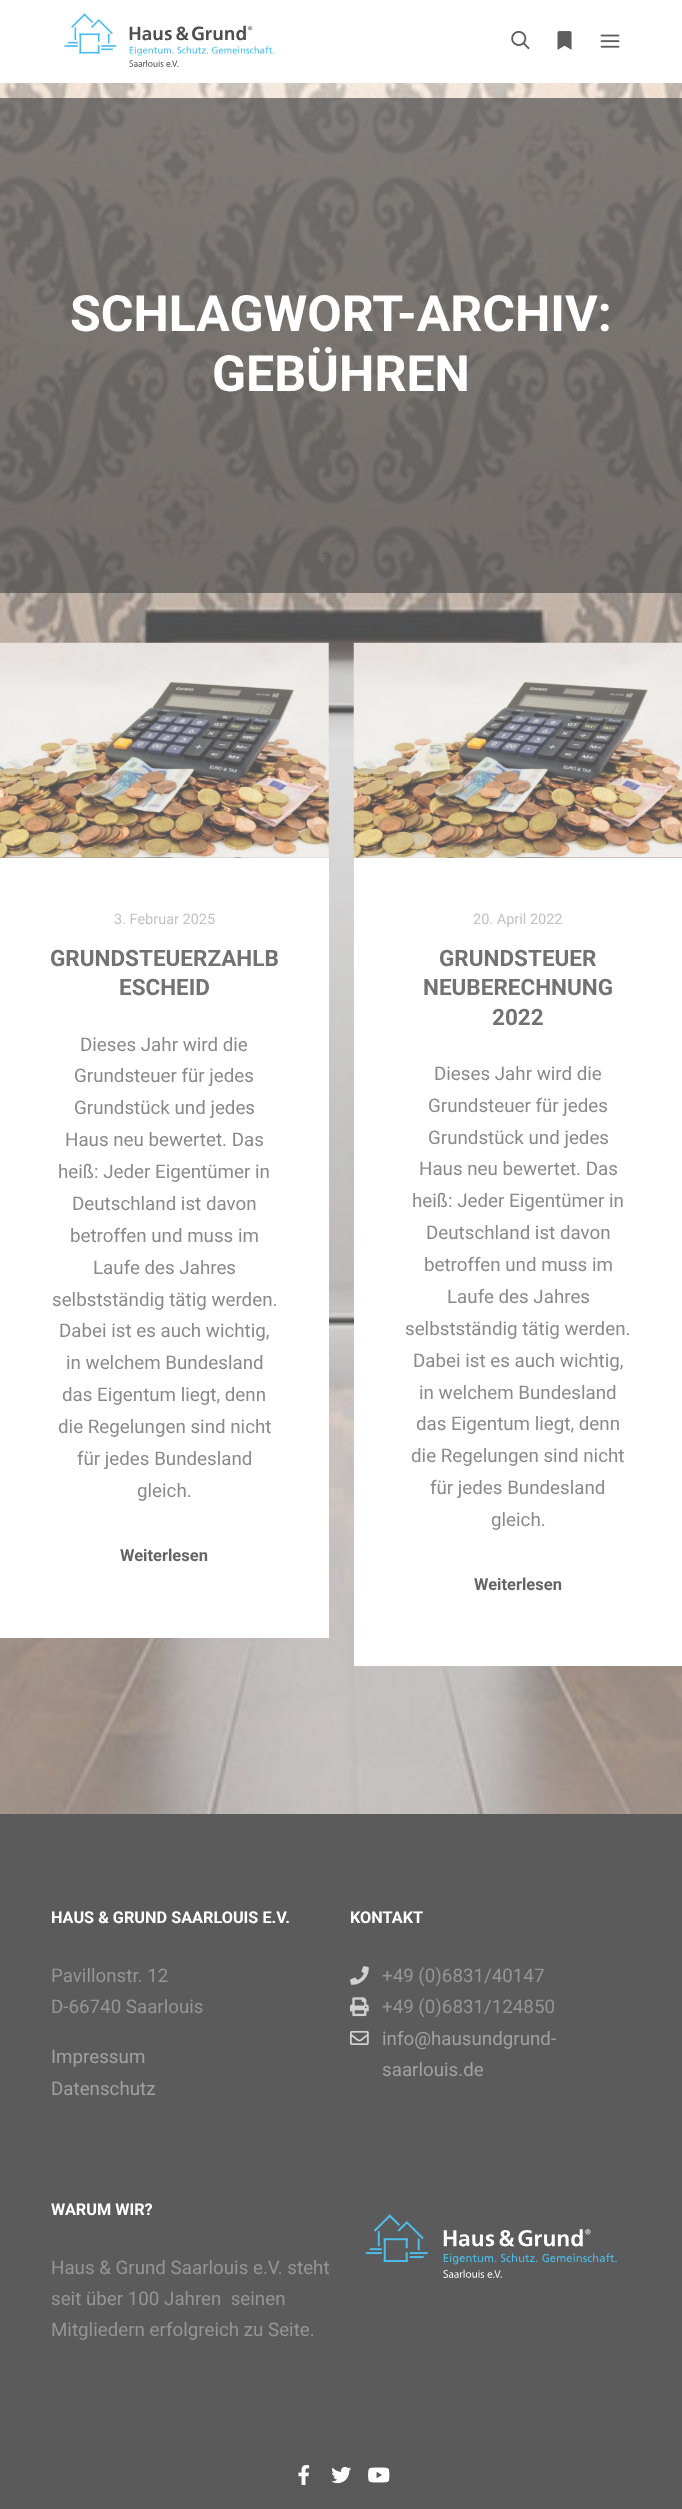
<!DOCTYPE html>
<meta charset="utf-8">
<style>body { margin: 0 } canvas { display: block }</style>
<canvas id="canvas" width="682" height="2509"></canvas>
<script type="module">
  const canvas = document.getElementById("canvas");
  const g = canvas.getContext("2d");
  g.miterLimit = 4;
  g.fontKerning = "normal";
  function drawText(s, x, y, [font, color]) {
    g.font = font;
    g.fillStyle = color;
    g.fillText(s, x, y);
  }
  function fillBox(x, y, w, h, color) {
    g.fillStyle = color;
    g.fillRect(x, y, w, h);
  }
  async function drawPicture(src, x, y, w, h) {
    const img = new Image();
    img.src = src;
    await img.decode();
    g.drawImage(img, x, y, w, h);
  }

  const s1 = ["bold 50px Roboto", "#FFFFFF"];
  const s2 = ["14.5px Roboto", "#C2C2C2"];
  const s3 = ["bold 22.5px Roboto", "#727272"];
  const s4 = ["18.75px Roboto", "#8A8A8A"];
  const s5 = ["bold 16.5px Roboto", "#646464"];
  const s6 = ["bold 16.25px Roboto", "#FFFFFF"];
  const s7 = ["18.75px Roboto", "#959595"];
  const s8 = ["18.75px Roboto", "#A1A1A1"];

  fillBox(0, 0, 682, 2509, "#FFFFFF");
  await drawPicture("pic1.png", 64, 13, 211, 54);
  await drawPicture("pic2.png", 511, 30, 19, 20);
  await drawPicture("pic3.png", 557, 31, 15, 19);
  await drawPicture("pic4.png", 600, 34, 20, 14);
  await drawPicture("pic5.png", 0, 83, 682, 1731);
  fillBox(0, 98, 682, 495, "rgba(79, 79, 79, 0.7)");
  drawText("SCHLAGWORT-ARCHIV:", 70, 331, s1);
  drawText("GEBÜHREN", 212, 391, s1);
  await drawPicture("pic6.png", 0, 642, 329, 216);
  fillBox(0, 858, 329, 780, "#FFFFFF");
  drawText("3. Februar 2025", 114, 924, s2);
  drawText("GRUNDSTEUERZAHLB", 50, 966, s3);
  drawText("ESCHEID", 119, 995, s3);
  drawText("Dieses Jahr wird die", 80, 1051, s4);
  drawText("Grundsteuer für jedes", 74, 1082, s4);
  drawText("Grundstück und jedes", 74, 1114, s4);
  drawText("Haus neu bewertet. Das", 65, 1146, s4);
  drawText("heiß: Jeder Eigentümer in", 58, 1178, s4);
  drawText("Deutschland ist davon", 72, 1210, s4);
  drawText("betroffen und muss im", 70, 1242, s4);
  drawText("Laufe des Jahres", 93, 1274, s4);
  drawText("selbstständig tätig werden.", 52, 1306, s4);
  drawText("Dabei ist es auch wichtig,", 59, 1337, s4);
  drawText("in welchem Bundesland", 66, 1369, s4);
  drawText("das Eigentum liegt, denn", 62, 1401, s4);
  drawText("die Regelungen sind nicht", 58, 1433, s4);
  drawText("für jedes Bundesland", 77, 1465, s4);
  drawText("gleich.", 137, 1497, s4);
  drawText("Weiterlesen", 120, 1561, s5);
  await drawPicture("pic7.png", 353, 642, 329, 216);
  fillBox(354, 858, 328, 808, "#FFFFFF");
  drawText("20. April 2022", 473, 924, s2);
  drawText("GRUNDSTEUER", 439, 966, s3);
  drawText("NEUBERECHNUNG", 423, 995, s3);
  drawText("2022", 492, 1025, s3);
  drawText("Dieses Jahr wird die", 434, 1080, s4);
  drawText("Grundsteuer für jedes", 428, 1112, s4);
  drawText("Grundstück und jedes", 428, 1144, s4);
  drawText("Haus neu bewertet. Das", 419, 1175, s4);
  drawText("heiß: Jeder Eigentümer in", 412, 1207, s4);
  drawText("Deutschland ist davon", 426, 1239, s4);
  drawText("betroffen und muss im", 424, 1271, s4);
  drawText("Laufe des Jahres", 447, 1303, s4);
  drawText("selbstständig tätig werden.", 405, 1335, s4);
  drawText("Dabei ist es auch wichtig,", 413, 1367, s4);
  drawText("in welchem Bundesland", 419, 1399, s4);
  drawText("das Eigentum liegt, denn", 416, 1430, s4);
  drawText("die Regelungen sind nicht", 411, 1462, s4);
  drawText("für jedes Bundesland", 430, 1494, s4);
  drawText("gleich.", 491, 1526, s4);
  drawText("Weiterlesen", 474, 1590, s5);
  fillBox(0, 1814, 682, 626, "#5B5B5B");
  drawText("HAUS & GRUND SAARLOUIS E.V.", 51, 1923, s6);
  drawText("Pavillonstr. 12", 51, 1982, s7);
  drawText("D-66740 Saarlouis", 51, 2013, s7);
  drawText("Impressum", 51, 2063, s8);
  drawText("Datenschutz", 51, 2095, s8);
  drawText("KONTAKT", 350, 1923, s6);
  await drawPicture("pic8.png", 350, 1966, 19, 19);
  drawText("+49 (0)6831/40147", 382, 1982, s7);
  await drawPicture("pic9.png", 350, 1997, 19, 20);
  drawText("+49 (0)6831/124850", 382, 2013, s7);
  await drawPicture("pic10.png", 350, 2030, 19, 15);
  drawText("info@hausundgrund-", 382, 2045, s8);
  drawText("saarlouis.de", 382, 2076, s8);
  drawText("WARUM WIR?", 51, 2215, s6);
  drawText("Haus & Grund Saarlouis e.V. steht", 51, 2274, s7);
  drawText("seit über 100 Jahren  seinen", 51, 2305, s7);
  drawText("Mitgliedern erfolgreich zu Seite.", 51, 2336, s7);
  await drawPicture("pic11.png", 365, 2214, 252, 64);
  fillBox(0, 2440, 682, 69, "#595959");
  await drawPicture("pic12.png", 298, 2465, 12, 20);
  await drawPicture("pic13.png", 331, 2466, 21, 18);
  await drawPicture("pic14.png", 368, 2467, 22, 16);
</script>
